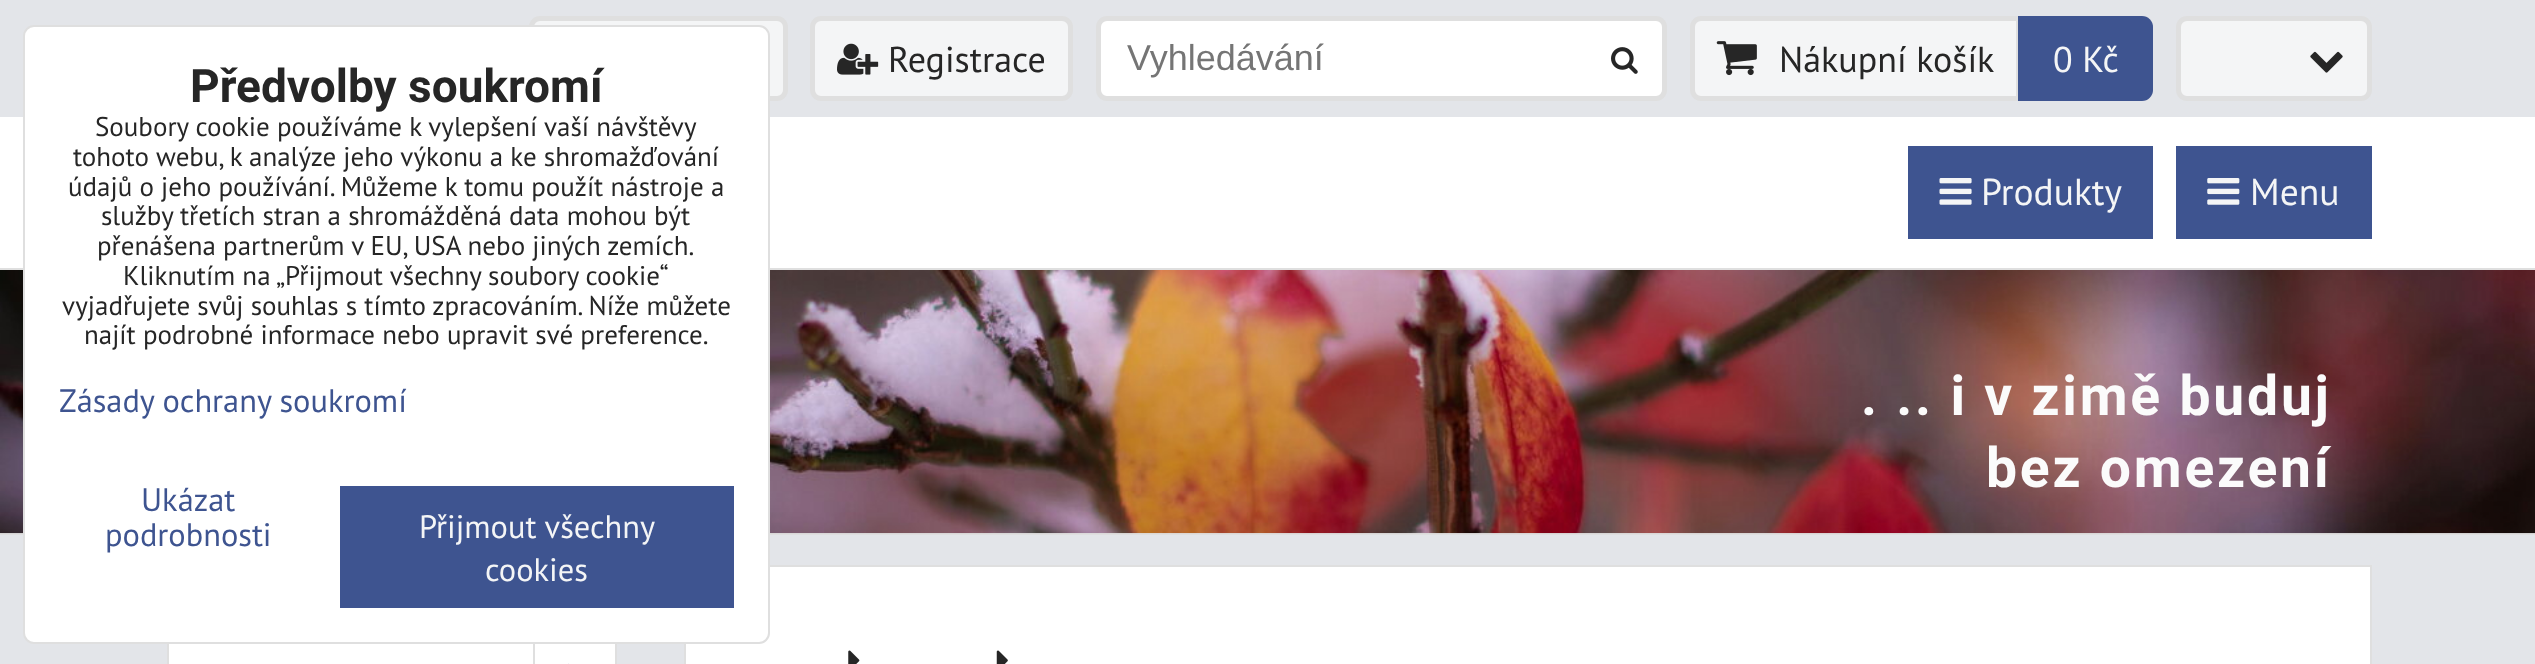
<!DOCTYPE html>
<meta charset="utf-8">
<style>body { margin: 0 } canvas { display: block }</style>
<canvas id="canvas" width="2535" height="664"></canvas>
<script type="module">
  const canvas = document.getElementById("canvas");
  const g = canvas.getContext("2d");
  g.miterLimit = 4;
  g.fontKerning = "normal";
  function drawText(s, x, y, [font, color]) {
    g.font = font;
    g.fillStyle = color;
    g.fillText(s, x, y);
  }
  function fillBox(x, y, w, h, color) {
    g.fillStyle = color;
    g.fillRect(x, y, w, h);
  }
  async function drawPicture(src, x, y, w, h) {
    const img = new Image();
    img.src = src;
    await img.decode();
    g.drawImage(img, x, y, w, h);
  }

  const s1 = ["bold 46px Roboto", "#262626"];
  const s2 = ["27px PT Sans", "#262626"];
  const s3 = ["32.4px PT Sans", "#3E5490"];
  const s4 = ["32.4px PT Sans", "#F4F5F6"];
  const s5 = ["36px PT Sans", "#262626"];
  const s6 = ["36px Liberation Sans", "#757575"];
  const s7 = ["36px PT Sans", "#F4F5F6"];
  const s8 = ["37.5px PT Sans", "#F4F5F6"];
  const s9 = ["bold 55.25px Roboto", "#FBFBFB"];

  fillBox(0, 0, 2535, 664, "#E3E5E9");
  g.fillStyle = "#F4F5F6";
  g.beginPath();
  g.roundRect(531.5, 18.5, 254, 80, 8.5);
  g.fill();
  g.strokeStyle = "#DFDFDF";
  g.lineWidth = 5;
  g.stroke();
  fillBox(0, 117, 2535, 151, "#FFFFFF");
  fillBox(0, 268, 2535, 2, "#DFDFDF");
  fillBox(0, 533, 2535, 2, "#DFDFDF");
  await drawPicture("pic7.png", 0, 270, 2535, 264);
  fillBox(169, 644, 446, 20, "#FFFFFF");
  g.lineWidth = 2;
  g.strokeRect(168, 566, 448, 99);
  g.beginPath();
  g.rect(685, 566, 1686, 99);
  g.fill();
  g.stroke();
  g.beginPath();
  g.roundRect(24, 26, 745, 617, 10);
  g.fill();
  g.stroke();
  drawText("Předvolby soukromí", 190, 102, s1);
  drawText("Soubory cookie používáme k vylepšení vaší návštěvy", 95, 136, s2);
  drawText("tohoto webu, k analýze jeho výkonu a ke shromažďování", 73, 166, s2);
  drawText("údajů o jeho používání. Můžeme k tomu použít nástroje a", 68, 196, s2);
  drawText("služby třetích stran a shromážděná data mohou být", 101, 225, s2);
  drawText("přenášena partnerům v EU, USA nebo jiných zemích.", 97, 255, s2);
  drawText("Kliknutím na „Přijmout všechny soubory cookie“", 123, 285, s2);
  drawText("vyjadřujete svůj souhlas s tímto zpracováním. Níže můžete", 62, 315, s2);
  drawText("najít podrobné informace nebo upravit své preference.", 84, 344, s2);
  drawText("Zásady ochrany soukromí", 59, 412, s3);
  drawText("Ukázat", 141, 511, s3);
  drawText("podrobnosti", 105, 546, s3);
  fillBox(340, 486, 394, 122, "#3E5490");
  drawText("Přijmout všechny", 419, 538, s4);
  drawText("cookies", 485, 581, s4);
  g.beginPath();
  g.roundRect(812.5, 18.5, 258, 80, 8.5);
  g.fill();
  g.lineWidth = 5;
  g.stroke();
  await drawPicture("pic1.png", 837, 43, 42, 32);
  drawText("Registrace", 888, 72, s5);
  g.fillStyle = "#FFFFFF";
  g.beginPath();
  g.roundRect(1098.5, 18.5, 566, 80, 8.5);
  g.fill();
  g.stroke();
  drawText("Vyhledávání", 1127, 70, s6);
  await drawPicture("pic2.png", 1611, 47, 27, 27);
  g.fillStyle = "#F4F5F6";
  g.beginPath();
  g.roundRect(1692.5, 18.5, 458, 80, 8.5);
  g.fill();
  g.stroke();
  await drawPicture("pic3.png", 1716, 41, 41, 35);
  drawText("Nákupní košík", 1779, 72, s5);
  g.fillStyle = "#3E5490";
  g.beginPath();
  g.roundRect(2016, 16, 137, 85, [0, 11, 11, 0]);
  g.fill();
  fillBox(2016, 16, 2, 85, "#DFDFDF");
  drawText("0 Kč", 2053, 72, s7);
  g.beginPath();
  g.roundRect(2178.5, 18.5, 191, 80, 8.5);
  g.fill();
  g.stroke();
  await drawPicture("pic4.png", 2310, 51, 33, 22);
  fillBox(1908, 146, 245, 93, "#3E5490");
  await drawPicture("pic5.png", 1939, 178, 33, 27);
  drawText("Produkty", 1981, 205, s8);
  fillBox(2176, 146, 196, 93, "#3E5490");
  await drawPicture("pic6.png", 2207, 178, 33, 27);
  drawText("Menu", 2250, 205, s8);
  g.letterSpacing = "2.75px";
  drawText(". .. i v zimě buduj", 1861, 415, s9);
  drawText("bez omezení", 1986, 487, s9);
  fillBox(533, 644, 2, 20, "#DFDFDF");
  fillBox(568, 663, 1, 1, "#F1F3F7");
  await drawPicture("pic8.png", 848, 650, 12, 14);
  await drawPicture("pic9.png", 996, 650, 12, 14);
</script>
